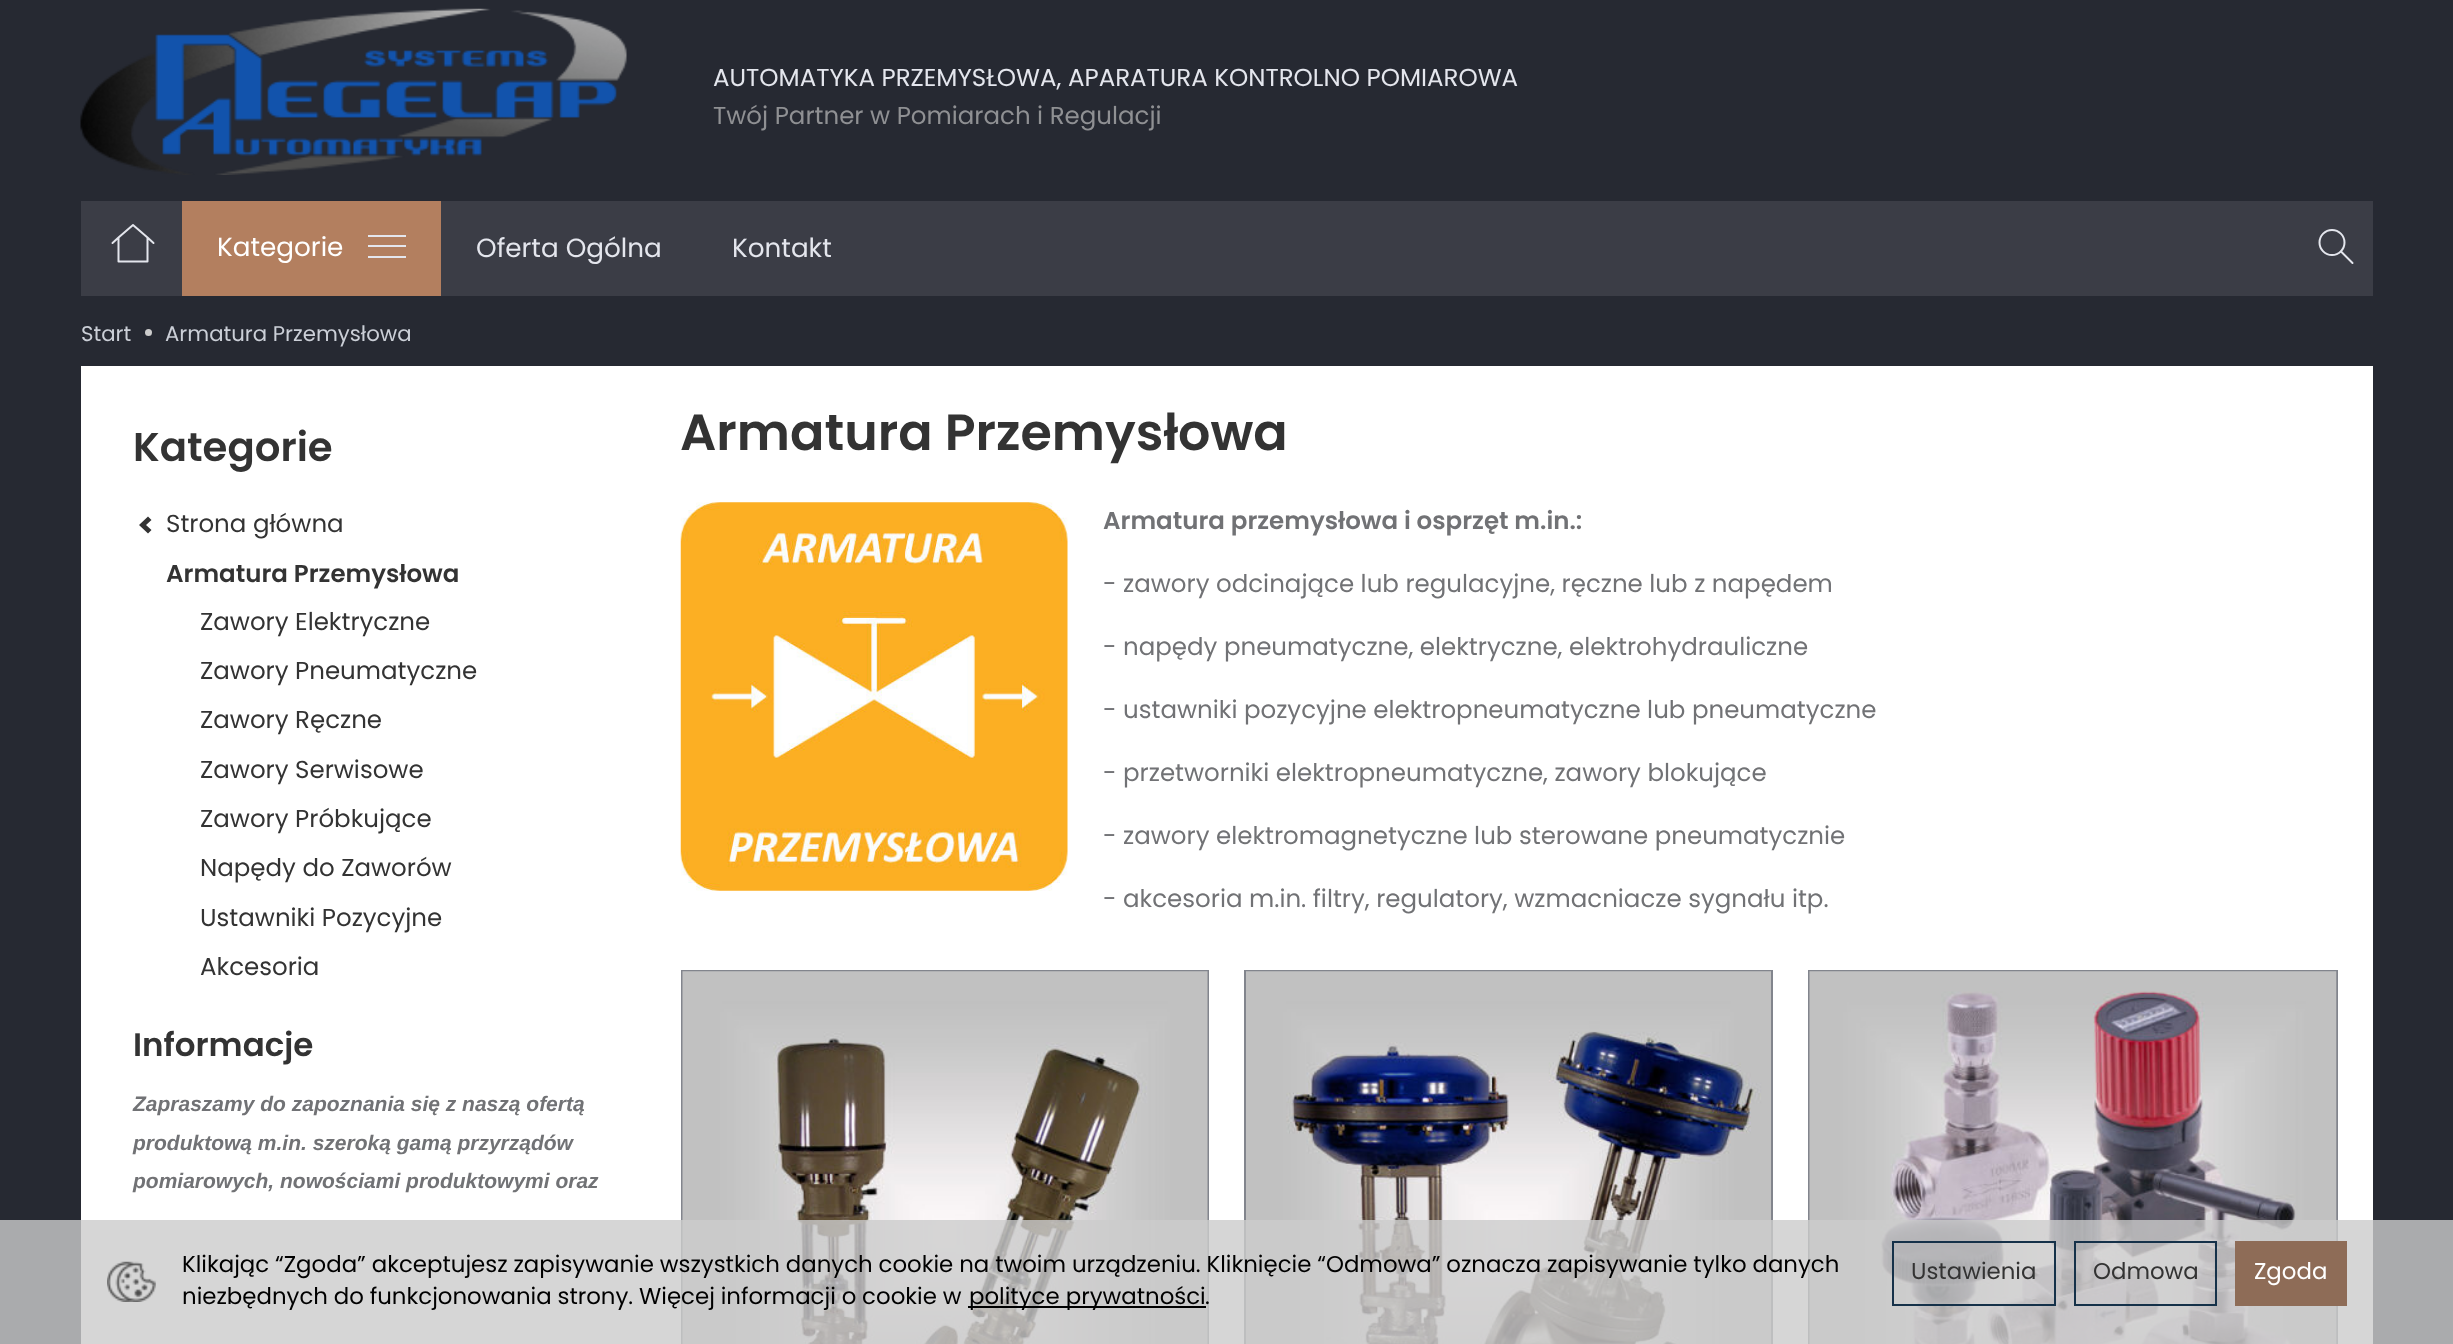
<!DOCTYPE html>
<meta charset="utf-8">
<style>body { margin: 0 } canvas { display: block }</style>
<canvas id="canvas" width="2453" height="1344"></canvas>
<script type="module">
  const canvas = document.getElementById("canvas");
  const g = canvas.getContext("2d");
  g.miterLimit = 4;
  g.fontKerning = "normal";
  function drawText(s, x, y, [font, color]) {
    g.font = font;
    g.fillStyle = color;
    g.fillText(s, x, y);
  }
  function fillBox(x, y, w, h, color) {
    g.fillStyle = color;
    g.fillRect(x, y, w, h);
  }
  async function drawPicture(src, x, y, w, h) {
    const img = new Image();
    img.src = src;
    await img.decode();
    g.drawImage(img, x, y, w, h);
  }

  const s1 = ["24.5px Poppins", "#E4E6ED"];
  const s2 = ["24.5px Poppins", "#8F9093"];
  const s3 = ["26.25px Poppins", "#FFFFFF"];
  const s4 = ["26.25px Poppins", "#E4E6ED"];
  const s5 = ["21.25px Poppins", "#CBCFD7"];
  const s6 = ["600 40.25px Poppins", "#333333"];
  const s7 = ["24.5px Poppins", "#333333"];
  const s8 = ["600 24.5px Poppins", "#333333"];
  const s9 = ["600 32.5px Poppins", "#333333"];
  const s10 = ["italic bold 21px Liberation Sans", "#717275"];
  const s11 = ["600 50.75px Poppins", "#333333"];
  const s12 = ["600 24.5px Poppins", "#717275"];
  const s13 = ["24.5px Poppins", "#717275"];
  const s14 = ["22.87px Poppins", "#000000"];
  const s15 = ["22.87px Poppins", "#333333"];
  const s16 = ["22.87px Poppins", "#FFFFFF"];

  fillBox(0, 0, 2453, 1344, "#262932");
  await drawPicture("pic1.png", 80, 8, 547, 167);
  drawText("AUTOMATYKA PRZEMYSŁOWA, APARATURA KONTROLNO POMIAROWA", 713, 86, s1);
  drawText("Twój Partner w Pomiarach i Regulacji", 713, 124, s2);
  fillBox(81, 201, 2292, 95, "#3B3D46");
  g.beginPath();
  g.moveTo(112.5, 243);
  g.lineTo(118.5, 237.5);
  g.moveTo(153.5, 243);
  g.lineTo(147.5, 237.5);
  g.moveTo(147.5, 237.5);
  g.lineTo(133, 225);
  g.lineTo(118.5, 237.5);
  g.moveTo(147.5, 237.5);
  g.lineTo(147.5, 261.5);
  g.lineTo(118.5, 261.5);
  g.lineTo(118.5, 237.5);
  g.strokeStyle = "#E4E6ED";
  g.lineWidth = 2;
  g.lineCap = "round";
  g.lineJoin = "round";
  g.stroke();
  fillBox(182, 201, 259, 95, "#B37F5F");
  drawText("Kategorie", 217, 256, s3);
  fillBox(368, 235, 38, 2, "#E4E6ED");
  fillBox(368, 245, 38, 2, "#E4E6ED");
  fillBox(368, 256, 38, 2, "#E4E6ED");
  drawText("Oferta Ogólna", 476, 257, s4);
  drawText("Kontakt", 732, 257, s4);
  g.beginPath();
  g.moveTo(2341, 251.5);
  g.lineTo(2352.5, 263);
  g.stroke();
  g.beginPath();
  g.arc(2332, 242.5, 12.5, 0, Math.PI * 2);
  g.stroke();
  drawText("Start", 81, 341, s5);
  g.fillStyle = "#CCCCCC";
  g.beginPath();
  g.arc(148.5, 332.5, 3.5, 0, Math.PI * 2);
  g.fill();
  drawText("Armatura Przemysłowa", 165, 341, s5);
  fillBox(81, 366, 2292, 978, "#FFFFFF");
  drawText("Kategorie", 133, 461, s6);
  g.beginPath();
  g.moveTo(139, 525);
  g.lineTo(148, 533.5);
  g.lineTo(151.5, 530);
  g.lineTo(146, 525);
  g.lineTo(151.5, 520);
  g.lineTo(148, 516.5);
  g.closePath();
  g.fill();
  drawText("Strona główna", 166, 532, s7);
  drawText("Armatura Przemysłowa", 166, 582, s8);
  drawText("Zawory Elektryczne", 200, 630, s7);
  drawText("Zawory Pneumatyczne", 200, 679, s7);
  drawText("Zawory Ręczne", 200, 728, s7);
  drawText("Zawory Serwisowe", 200, 778, s7);
  drawText("Zawory Próbkujące", 200, 827, s7);
  drawText("Napędy do Zaworów", 200, 876, s7);
  drawText("Ustawniki Pozycyjne", 200, 926, s7);
  drawText("Akcesoria", 200, 975, s7);
  drawText("Informacje", 133, 1056, s9);
  drawText("Zapraszamy do zapoznania się z naszą ofertą", 133, 1111, s10);
  drawText("produktową m.in. szeroką gamą przyrządów", 133, 1150, s10);
  drawText("pomiarowych, nowościami produktowymi oraz", 133, 1188, s10);
  drawText("Armatura Przemysłowa", 680, 450, s11);
  await drawPicture("pic2.png", 680, 502, 388, 389);
  drawText("Armatura przemysłowa i osprzęt m.in.:", 1103, 529, s12);
  drawText("- zawory odcinające lub regulacyjne, ręczne lub z napędem", 1103, 592, s13);
  drawText("- napędy pneumatyczne, elektryczne, elektrohydrauliczne", 1103, 655, s13);
  drawText("- ustawniki pozycyjne elektropneumatyczne lub pneumatyczne", 1103, 718, s13);
  drawText("- przetworniki elektropneumatyczne, zawory blokujące", 1103, 781, s13);
  drawText("- zawory elektromagnetyczne lub sterowane pneumatycznie", 1103, 844, s13);
  drawText("- akcesoria m.in. filtry, regulatory, wzmacniacze sygnału itp.", 1103, 907, s13);
  g.strokeStyle = "#82858D";
  g.lineJoin = "miter";
  g.strokeRect(682, 971, 526, 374);
  await drawPicture("pic3.png", 682, 971, 526, 373);
  g.strokeRect(1245, 971, 527, 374);
  await drawPicture("pic4.png", 1246, 971, 525, 373);
  g.strokeRect(1809, 971, 528, 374);
  await drawPicture("pic5.png", 1809, 971, 528, 373);
  fillBox(0, 1220, 2453, 124, "rgba(204, 204, 204, 0.8)");
  await drawPicture("pic6.png", 107, 1261, 49, 41);
  g.wordSpacing = "-0.2px";
  drawText("Klikając “Zgoda” akceptujesz zapisywanie wszystkich danych cookie na twoim urządzeniu. Kliknięcie “Odmowa” oznacza zapisywanie tylko danych", 182, 1272, s14);
  g.wordSpacing = "-0.25px";
  drawText("niezbędnych do funkcjonowania strony. Więcej informacji o cookie w", 182, 1304, s14);
  fillBox(968, 1306, 238, 2, "#000000");
  g.wordSpacing = "0px";
  drawText("polityce prywatności", 969, 1304, s14);
  drawText(".", 1205, 1304, s14);
  g.strokeStyle = "#153149";
  g.strokeRect(1893, 1242, 162, 63);
  drawText("Ustawienia", 1911, 1279, s15);
  g.strokeRect(2075, 1242, 141, 63);
  drawText("Odmowa", 2093, 1279, s15);
  fillBox(2235, 1241, 112, 65, "#8E6C57");
  drawText("Zgoda", 2254, 1279, s16);
</script>
